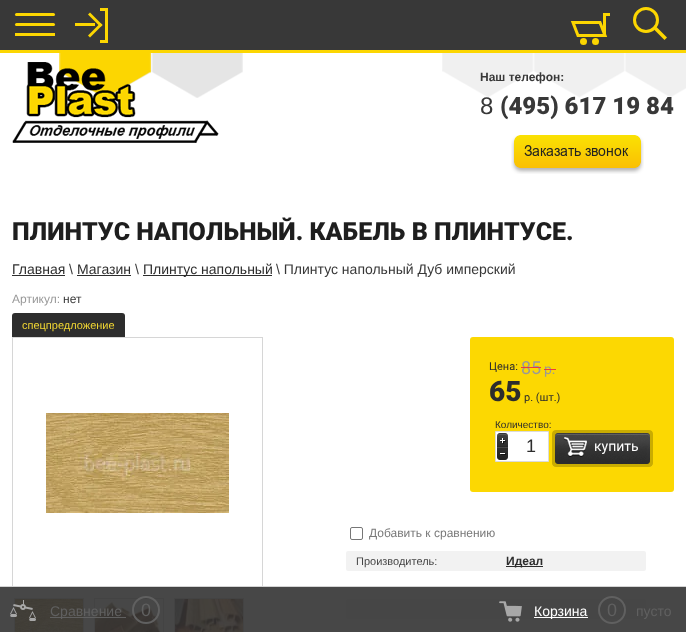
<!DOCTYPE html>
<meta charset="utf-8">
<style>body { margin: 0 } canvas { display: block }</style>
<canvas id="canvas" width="686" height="632"></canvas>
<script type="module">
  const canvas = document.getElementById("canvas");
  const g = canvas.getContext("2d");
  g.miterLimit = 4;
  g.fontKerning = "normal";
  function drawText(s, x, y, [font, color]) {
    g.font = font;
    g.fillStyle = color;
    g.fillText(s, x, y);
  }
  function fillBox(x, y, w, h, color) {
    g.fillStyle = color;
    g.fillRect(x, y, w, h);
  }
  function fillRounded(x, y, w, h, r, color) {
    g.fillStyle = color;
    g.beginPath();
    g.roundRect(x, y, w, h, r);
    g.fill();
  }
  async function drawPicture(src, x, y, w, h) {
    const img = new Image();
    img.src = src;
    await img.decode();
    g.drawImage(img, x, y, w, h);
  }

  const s1 = ["bold 12px Liberation Sans", "#383838"];
  const s2 = ["24px Liberation Sans", "#383838"];
  const s3 = ["900 24px Roboto", "#383838"];
  const s4 = ["900 25px Roboto", "#1E1E1E"];
  const s5 = ["14px Liberation Sans", "#2D2D2D"];
  const s6 = ["14px Liberation Sans", "#383838"];
  const s7 = ["12px Liberation Sans", "#999999"];
  const s8 = ["12px Liberation Sans", "#383838"];
  const s9 = ["11px Liberation Sans", "#F2D733"];
  const s10 = ["11px roboto", "#2D2D2D"];
  const s11 = ["18px roboto", "#999999"];
  const s12 = ["14px roboto", "#999999"];
  const s13 = ["900 28px Roboto", "#2D2D2D"];
  const s14 = ["10px Liberation Sans", "#2D2D2D"];
  const s15 = ["18px Liberation Sans", "#2D2D2D"];
  const s16 = ["14px roboto", "#FFFFFF"];
  const s17 = ["12px Liberation Sans", "#797979"];
  const s18 = ["11px Liberation Sans", "#454545"];
  const s19 = ["bold 12px Liberation Sans", "#2D2D2D"];
  const s20 = ["14px Liberation Sans", "#606060"];
  const s21 = ["18px Liberation Sans", "#606060"];
  const s22 = ["14px Liberation Sans", "#FFFFFF"];

  fillBox(0, 0, 686, 632, "#FFFFFF");
  fillBox(0, 0, 686, 50, "#383838");
  fillBox(0, 50, 686, 3, "#FCD601");
  fillRounded(15, 23, 40, 3, 1.5, "#FCD601");
  fillRounded(15, 13, 40, 3, 1.5, "#FCD601");
  fillBox(15, 33, 40, 3, "#FCD601");
  fillBox(75, 23, 20, 3, "#FCD601");
  g.beginPath();
  g.moveTo(90, 12.5);
  g.lineTo(102.5, 25);
  g.lineTo(100.5, 27);
  g.lineTo(88, 14.5);
  g.closePath();
  g.fill();
  g.beginPath();
  g.moveTo(100.5, 23);
  g.lineTo(102.5, 25);
  g.lineTo(90, 37.5);
  g.lineTo(88, 35.5);
  g.closePath();
  g.fill();
  fillBox(100, 8, 8, 3, "#FCD601");
  fillBox(105, 8, 3, 35, "#FCD601");
  fillBox(100, 40, 8, 3, "#FCD601");
  fillBox(603, 13, 7, 3, "#FCD601");
  g.beginPath();
  g.moveTo(573, 22.5);
  g.lineTo(600, 22.5);
  g.lineTo(605, 35.5);
  g.lineTo(578, 35.5);
  g.closePath();
  g.strokeStyle = "#FCD601";
  g.lineWidth = 3;
  g.stroke();
  fillBox(603, 13, 3, 23, "#FCD601");
  g.beginPath();
  g.arc(595.5, 41.5, 3.5, 0, Math.PI * 2);
  g.fill();
  g.beginPath();
  g.arc(583.5, 41.5, 3.5, 0, Math.PI * 2);
  g.fill();
  g.beginPath();
  g.arc(646, 20, 11.5, 0, Math.PI * 2);
  g.stroke();
  g.beginPath();
  g.moveTo(656.5, 27);
  g.lineTo(667, 37.5);
  g.lineTo(664.5, 40);
  g.lineTo(654, 29.5);
  g.closePath();
  g.fill();
  await drawPicture("pic1.png", 59, 53, 627, 45);
  await drawPicture("pic2.png", 12, 62, 207, 81);
  drawText("Наш телефон:", 480, 81, s1);
  drawText("8", 480, 114, s2);
  drawText("(495) 617 19 84", 500, 114, s3);
  await drawPicture("pic3.png", 511, 135, 133, 39);
  drawText("ПЛИНТУС НАПОЛЬНЫЙ. КАБЕЛЬ В ПЛИНТУСЕ.", 12, 240, s4);
  drawText("Главная", 12, 274, s5);
  fillBox(12, 275, 53, 1, "#2D2D2D");
  drawText("\\", 69, 274, s6);
  drawText("Магазин", 77, 274, s5);
  fillBox(77, 275, 54, 1, "#2D2D2D");
  drawText("\\", 135, 274, s6);
  fillBox(143, 275, 129, 1, "#2D2D2D");
  drawText("Плинтус напольный", 143, 274, s5);
  drawText("\\ Плинтус напольный Дуб имперский", 276, 274, s6);
  drawText("Артикул:", 12, 303, s7);
  drawText("нет", 63, 303, s8);
  g.fillStyle = "#2D2D2D";
  g.beginPath();
  g.roundRect(12, 313, 113, 24, [3, 3, 0, 0]);
  g.fill();
  drawText("спецпредложение", 22, 329, s9);
  g.strokeStyle = "#D6D6D6";
  g.lineWidth = 1;
  g.strokeRect(12.5, 337.5, 250, 250);
  await drawPicture("pic4.png", 46, 413, 183, 100);
  g.strokeRect(14.5, 598.5, 69, 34);
  await drawPicture("pic5.png", 15, 599, 68, 33);
  g.strokeRect(94.5, 598.5, 69, 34);
  await drawPicture("pic6.png", 95, 599, 67, 33);
  g.strokeRect(174.5, 598.5, 69, 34);
  await drawPicture("pic7.png", 175, 599, 68, 33);
  fillRounded(470, 337, 204, 155, 3, "#FCD802");
  drawText("Цена:", 489, 370, s10);
  drawText("85", 521, 374, s11);
  fillBox(521, 367, 20, 1, "#EB3C3C");
  drawText("р.", 544, 374, s12);
  fillBox(544, 369, 12, 1, "#EB3C3C");
  drawText("65", 489, 401, s13);
  drawText("р. (шт.)", 524, 401, s10);
  drawText("Количество:", 495, 428, s14);
  g.fillStyle = "#FFFFFF";
  g.beginPath();
  g.rect(495.5, 431.5, 53, 30);
  g.fill();
  g.strokeStyle = "#DBDBDB";
  g.stroke();
  await drawPicture("pic8.png", 497, 433, 11, 14);
  drawText("1", 526, 452, s15);
  await drawPicture("pic9.png", 497, 447, 11, 13);
  await drawPicture("pic10.png", 552, 430, 101, 37);
  await drawPicture("pic11.png", 564, 437, 23, 20);
  drawText("купить", 594, 451, s16);
  g.beginPath();
  g.roundRect(350.5, 527.5, 12, 12, 1.5);
  g.strokeStyle = "#767676";
  g.stroke();
  drawText("Добавить к сравнению", 369, 537, s17);
  g.fillStyle = "#F2F2F2";
  g.beginPath();
  g.roundRect(346, 551, 150, 20, [2, 0, 0, 2]);
  g.fill();
  drawText("Производитель:", 356, 565, s18);
  g.fillStyle = "#F2F2F2";
  g.beginPath();
  g.roundRect(496, 551, 150, 20, [0, 2, 2, 0]);
  g.fill();
  fillBox(506, 566, 37, 1, "#2D2D2D");
  drawText("Идеал", 506, 565, s19);
  g.fillStyle = "#F2F2F2";
  g.beginPath();
  g.roundRect(346, 599, 150, 20, [2, 0, 0, 2]);
  g.fill();
  g.beginPath();
  g.roundRect(496, 599, 150, 20, [0, 2, 2, 0]);
  g.fill();
  fillBox(0, 587, 686, 45, "rgba(51, 51, 51, 0.9)");
  fillBox(0, 586, 686, 1, "#D4D4D4");
  await drawPicture("pic12.png", 10, 600, 26, 21);
  fillBox(50, 617, 76, 1, "#606060");
  drawText("Сравнение", 50, 616, s20);
  g.beginPath();
  g.arc(146, 610, 13, 0, Math.PI * 2);
  g.strokeStyle = "#606060";
  g.lineWidth = 2;
  g.stroke();
  drawText("0", 141, 616, s21);
  await drawPicture("pic13.png", 499, 601, 23, 21);
  fillBox(534, 617, 54, 1, "#FFFFFF");
  drawText("Корзина", 534, 616, s22);
  g.beginPath();
  g.arc(612, 610, 13, 0, Math.PI * 2);
  g.stroke();
  drawText("0", 607, 616, s21);
  drawText("пусто", 636, 616, s20);
</script>
